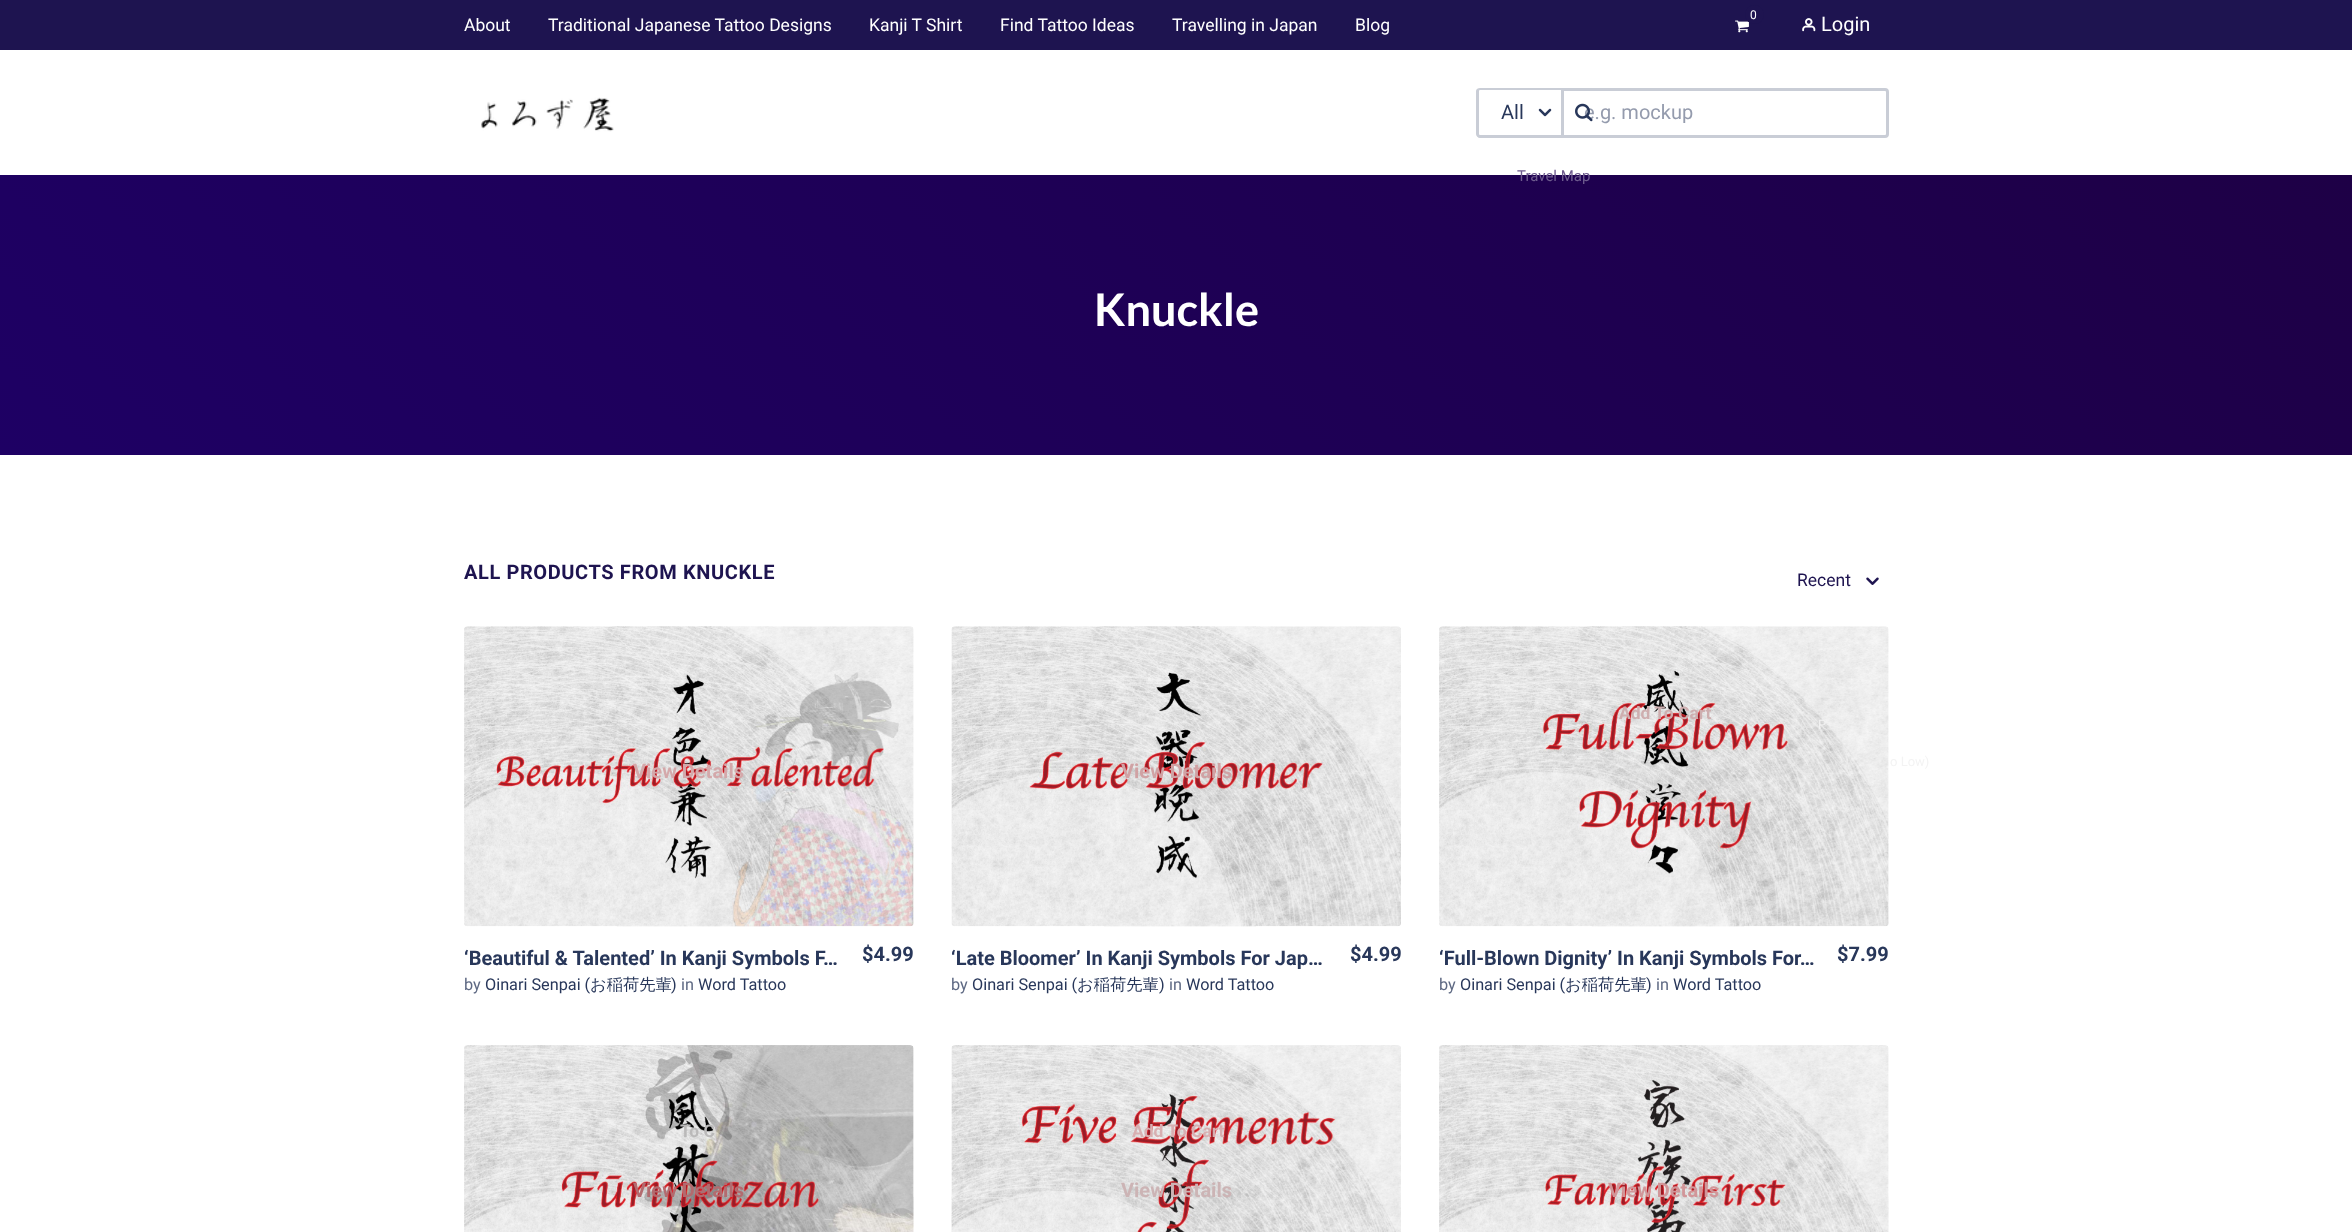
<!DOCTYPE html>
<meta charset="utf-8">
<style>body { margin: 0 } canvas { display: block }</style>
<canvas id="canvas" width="2352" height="1232"></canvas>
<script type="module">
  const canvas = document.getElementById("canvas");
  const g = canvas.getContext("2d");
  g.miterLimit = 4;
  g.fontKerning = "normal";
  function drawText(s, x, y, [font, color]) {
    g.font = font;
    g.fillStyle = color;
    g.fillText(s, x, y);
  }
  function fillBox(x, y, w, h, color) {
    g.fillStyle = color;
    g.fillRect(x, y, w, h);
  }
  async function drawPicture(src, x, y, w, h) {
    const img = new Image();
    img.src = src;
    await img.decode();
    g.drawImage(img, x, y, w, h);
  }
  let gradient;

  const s1 = ["17.5px Roboto", "#FFFFFF"];
  const s2 = ["12px Roboto", "#FFFFFF"];
  const s3 = ["20px Roboto", "#FFFFFF"];
  const s4 = ["20px Roboto", "#28375A"];
  const s5 = ["15px Roboto", "#6E5B8E"];
  const s6 = ["20px Roboto", "#949BAD"];
  const s7 = ["bold 45px Lato", "#FFFFFF"];
  const s8 = ["bold 20px Roboto", "#1E1450"];
  const s9 = ["17.5px Roboto", "#1E1450"];
  const s10 = ["13px Roboto", "#F3F3F3"];
  const s11 = ["bold 20px Roboto", "#D4A8AA"];
  const s12 = ["bold 20px Roboto", "#28375A"];
  const s13 = ["16.25px Roboto", "#5E6983"];
  const s14 = ["16.25px Roboto", "#28375A"];
  const s15 = ["500 16.25px WenQuanYi Zen Hei", "#28375A"];
  const s16 = ["bold 20px Roboto", "#D0A2A4"];
  const s17 = ["bold 17.5px Roboto", "#CEAEAF"];
  const s18 = ["bold 17.5px Roboto", "#BAB9B9"];
  const s19 = ["bold 20px Roboto", "#B36B6F"];
  const s20 = ["bold 17.5px Roboto", "#D8AFB1"];
  const s21 = ["bold 20px Roboto", "#CCB4B5"];
  const s22 = ["bold 20px Roboto", "#D19699"];

  fillBox(0, 0, 2352, 1232, "#FFFFFF");
  fillBox(0, 0, 2352, 50, "#1E1450");
  drawText("About", 464, 31, s1);
  drawText("Traditional Japanese Tattoo Designs", 548, 31, s1);
  drawText("Kanji T Shirt", 869, 31, s1);
  drawText("Find Tattoo Ideas", 1000, 31, s1);
  drawText("Travelling in Japan", 1172, 31, s1);
  drawText("Blog", 1355, 31, s1);
  await drawPicture("pic1.png", 1735, 20, 14, 13);
  g.fillStyle = "#1E1450";
  g.beginPath();
  g.arc(1754.5, 14.5, 9.5, 0, Math.PI * 2);
  g.fill();
  drawText("0", 1750, 19, s2);
  await drawPicture("pic2.png", 1802, 18, 14, 14);
  drawText("Login", 1821, 31, s3);
  await drawPicture("pic3.png", 481, 97, 133, 35);
  g.fillStyle = "#C9CDD6";
  g.beginPath();
  g.moveTo(1480, 88);
  g.lineTo(1561, 88);
  g.lineTo(1561, 138);
  g.lineTo(1480, 138);
  g.bezierCurveTo(1478, 138, 1476, 136, 1476, 134);
  g.lineTo(1476, 91);
  g.bezierCurveTo(1476, 89, 1478, 88, 1480, 88);
  g.closePath();
  g.moveTo(1480, 90);
  g.lineTo(1561, 90);
  g.lineTo(1561, 135);
  g.lineTo(1480, 135);
  g.bezierCurveTo(1479, 135, 1479, 134, 1479, 134);
  g.lineTo(1479, 91);
  g.bezierCurveTo(1479, 91, 1479, 90, 1480, 90);
  g.closePath();
  g.fill("evenodd");
  drawText("All", 1501, 119, s4);
  await drawPicture("pic4.png", 1538, 108, 14, 9);
  gradient = g.createLinearGradient(1834, -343, 518, 973);
  gradient.addColorStop(0, "#1E0046");
  gradient.addColorStop(1, "#1E0064");
  g.fillStyle = gradient;
  g.fillRect(0, 175, 2352, 280);
  drawText("Travel Map", 1517, 181, s5);
  g.beginPath();
  g.roundRect(1562.5, 89.5, 325, 47, [0, 2.5, 2.5, 0]);
  g.strokeStyle = "#C9CDD6";
  g.lineWidth = 3;
  g.stroke();
  drawText("e.g. mockup", 1584, 119, s6);
  await drawPicture("pic5.png", 1575, 103, 18, 19);
  drawText("Knuckle", 1094, 326, s7);
  g.letterSpacing = "0.6px";
  drawText("ALL PRODUCTS FROM KNUCKLE", 464, 579, s8);
  g.letterSpacing = "0px";
  drawText("Recent", 1797, 586, s9);
  await drawPicture("pic6.png", 1866, 577, 13, 8);
  await drawPicture("pic9.png", 1439, 626, 450, 301);
  drawText("P", 1818, 729, s10);
  drawText("o Low)", 1890, 766, s10);
  await drawPicture("pic7.png", 464, 626, 450, 301);
  drawText("View Details", 633, 778, s11);
  drawText("‘Beautiful & Talented’ In Kanji Symbols F…", 464, 965, s12);
  drawText("by", 464, 990, s13);
  drawText("Oinari Senpai (", 485, 990, s14);
  drawText("お稲荷先輩", 590, 990, s15);
  drawText(")", 671, 990, s14);
  drawText("in", 681, 990, s13);
  drawText("Word Tattoo", 698, 990, s14);
  drawText("$4.99", 862, 961, s12);
  await drawPicture("pic8.png", 951, 626, 450, 301);
  drawText("View Details", 1121, 778, s16);
  drawText("‘Late Bloomer’ In Kanji Symbols For Jap…", 951, 965, s12);
  drawText("by", 951, 990, s13);
  drawText("Oinari Senpai (", 972, 990, s14);
  drawText("お稲荷先輩", 1077, 990, s15);
  drawText(")", 1159, 990, s14);
  drawText("in", 1169, 990, s13);
  drawText("Word Tattoo", 1186, 990, s14);
  drawText("$4.99", 1350, 961, s12);
  drawText("Add To Cart", 1619, 719, s17);
  drawText("‘Full-Blown Dignity’ In Kanji Symbols For…", 1439, 965, s12);
  drawText("by", 1439, 990, s13);
  drawText("Oinari Senpai (", 1460, 990, s14);
  drawText("お稲荷先輩", 1565, 990, s15);
  drawText(")", 1646, 990, s14);
  drawText("in", 1656, 990, s13);
  drawText("Word Tattoo", 1673, 990, s14);
  drawText("$7.99", 1837, 961, s12);
  await drawPicture("pic10.png", 464, 1045, 450, 187);
  drawText("To C", 680, 1137, s18);
  drawText("View Details", 633, 1197, s19);
  await drawPicture("pic11.png", 951, 1045, 450, 187);
  drawText("Add To Cart", 1132, 1137, s20);
  drawText("View Details", 1121, 1197, s21);
  await drawPicture("pic12.png", 1439, 1045, 450, 187);
  drawText("View Details", 1608, 1197, s22);
</script>
